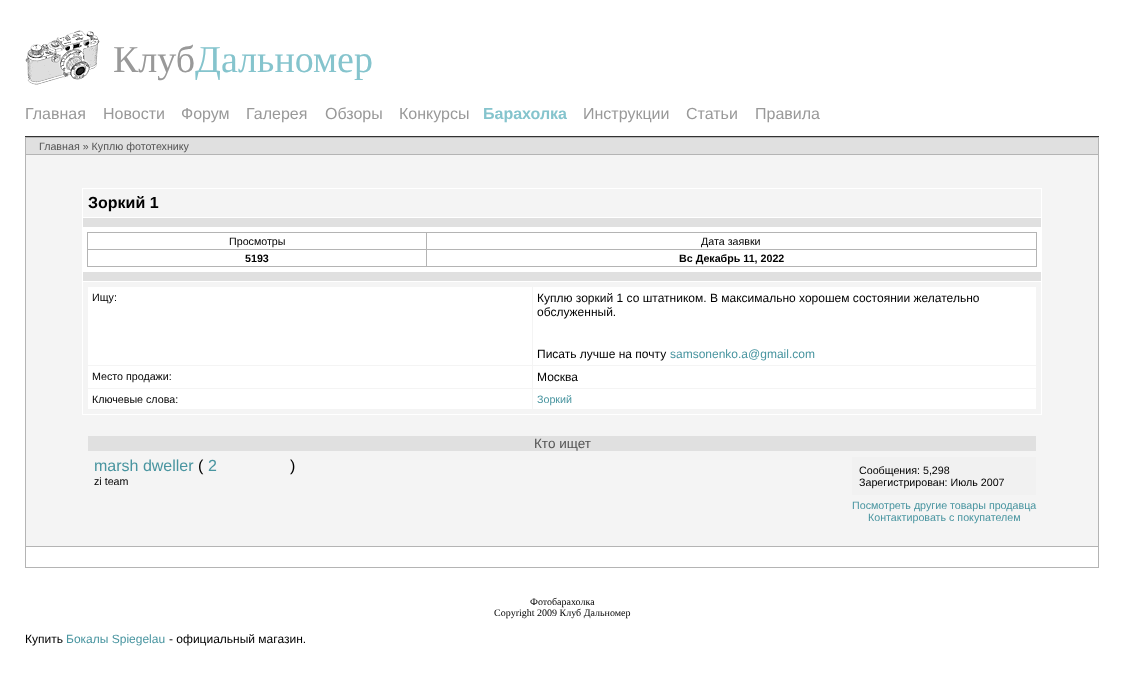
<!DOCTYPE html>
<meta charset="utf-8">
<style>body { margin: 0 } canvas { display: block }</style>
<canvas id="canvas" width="1124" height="674"></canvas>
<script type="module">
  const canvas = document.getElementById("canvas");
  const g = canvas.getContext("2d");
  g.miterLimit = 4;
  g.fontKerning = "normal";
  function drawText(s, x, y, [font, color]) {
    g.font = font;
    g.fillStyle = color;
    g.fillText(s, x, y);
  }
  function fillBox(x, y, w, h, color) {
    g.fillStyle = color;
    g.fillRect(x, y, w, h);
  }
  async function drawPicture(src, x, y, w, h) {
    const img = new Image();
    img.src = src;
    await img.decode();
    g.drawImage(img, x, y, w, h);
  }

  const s1 = ["38px Liberation Serif", "#999999"];
  const s2 = ["38px Liberation Serif", "#85C4CD"];
  const s3 = ["16px Liberation Sans", "#999999"];
  const s4 = ["bold 16px Liberation Sans", "#85C4CD"];
  const s5 = ["10.7px Liberation Sans", "#545454"];
  const s6 = ["bold 16px Liberation Sans", "#000000"];
  const s7 = ["10.7px Liberation Sans", "#000000"];
  const s8 = ["bold 10.7px Liberation Sans", "#000000"];
  const s9 = ["12px Liberation Sans", "#000000"];
  const s10 = ["12px Liberation Sans", "#4995A0"];
  const s11 = ["10.7px Liberation Sans", "#4995A0"];
  const s12 = ["13.5px Liberation Sans", "#545454"];
  const s13 = ["16px Liberation Sans", "#4995A0"];
  const s14 = ["16px Liberation Sans", "#000000"];
  const s15 = ["10px Liberation Serif", "#000000"];

  fillBox(0, 0, 1124, 674, "#FFFFFF");
  await drawPicture("pic1.png", 25, 30, 75, 55);
  drawText("Клуб", 113, 72, s1);
  drawText("Дальномер", 195, 72, s2);
  fillBox(25, 136, 1074, 1, "#333333");
  drawText("Главная", 25, 119, s3);
  drawText("Новости", 103, 119, s3);
  drawText("Форум", 181, 119, s3);
  drawText("Галерея", 246, 119, s3);
  drawText("Обзоры", 325, 119, s3);
  drawText("Конкурсы", 399, 119, s3);
  drawText("Барахолка", 483, 119, s4);
  drawText("Инструкции", 583, 119, s3);
  drawText("Статьи", 686, 119, s3);
  drawText("Правила", 755, 119, s3);
  fillBox(25, 137, 1074, 431, "#B4B4B4");
  fillBox(26, 138, 1072, 16, "#E0E0E0");
  drawText("Главная » Куплю фототехнику", 39, 150, s5);
  fillBox(26, 155, 1072, 391, "#F4F4F4");
  fillBox(82, 188, 960, 227, "#FFFFFF");
  fillBox(83, 189, 958, 28, "#F4F4F4");
  drawText("Зоркий 1", 88, 208, s6);
  fillBox(83, 218, 958, 9, "#E0E0E0");
  fillBox(87, 232, 950, 35, "#B4B4B4");
  fillBox(88, 233, 338, 16, "#FFFFFF");
  drawText("Просмотры", 229, 245, s7);
  fillBox(427, 233, 609, 16, "#FFFFFF");
  drawText("Дата заявки", 701, 245, s7);
  fillBox(88, 250, 338, 16, "#FFFFFF");
  drawText("5193", 245, 262, s8);
  fillBox(427, 250, 609, 16, "#FFFFFF");
  drawText("Вс Декабрь 11, 2022", 679, 262, s8);
  fillBox(83, 272, 958, 9, "#E0E0E0");
  fillBox(83, 282, 958, 132, "#F4F4F4");
  fillBox(88, 287, 444, 78, "#FFFFFF");
  drawText("Ищу:", 92, 301, s7);
  fillBox(533, 287, 503, 78, "#FFFFFF");
  drawText("Куплю зоркий 1 со штатником. В максимально хорошем состоянии желательно", 537, 302, s9);
  drawText("обслуженный.", 537, 316, s9);
  drawText("Писать лучше на почту", 537, 358, s9);
  drawText("samsonenko.a@gmail.com", 670, 358, s10);
  fillBox(88, 366, 444, 22, "#FFFFFF");
  drawText("Место продажи:", 92, 380, s7);
  fillBox(533, 366, 503, 22, "#FFFFFF");
  drawText("Москва", 537, 381, s9);
  fillBox(88, 389, 444, 20, "#FFFFFF");
  drawText("Ключевые слова:", 92, 403, s7);
  fillBox(533, 389, 503, 20, "#FFFFFF");
  drawText("Зоркий", 537, 403, s11);
  fillBox(88, 436, 948, 15, "#E0E0E0");
  drawText("Кто ищет", 534, 448, s12);
  drawText("marsh dweller", 94, 471, s13);
  drawText("(", 198, 471, s14);
  drawText("2", 208, 471, s13);
  drawText(")", 290, 471, s14);
  drawText("zi team", 94, 485, s7);
  fillBox(852, 457, 184, 38, "#F1F1F1");
  drawText("Сообщения: 5,298", 859, 474, s7);
  drawText("Зарегистрирован: Июль 2007", 859, 486, s7);
  drawText("Посмотреть другие товары продавца", 852, 509, s11);
  drawText("Контактировать с покупателем", 868, 521, s11);
  fillBox(26, 547, 1072, 20, "#FFFFFF");
  drawText("Фотобарахолка", 530, 605, s15);
  drawText("Copyright 2009 Клуб Дальномер", 494, 616, s15);
  drawText("Купить", 25, 643, s9);
  drawText("Бокалы Spiegelau", 66, 643, s10);
  drawText("- официальный магазин.", 169, 643, s9);
</script>
